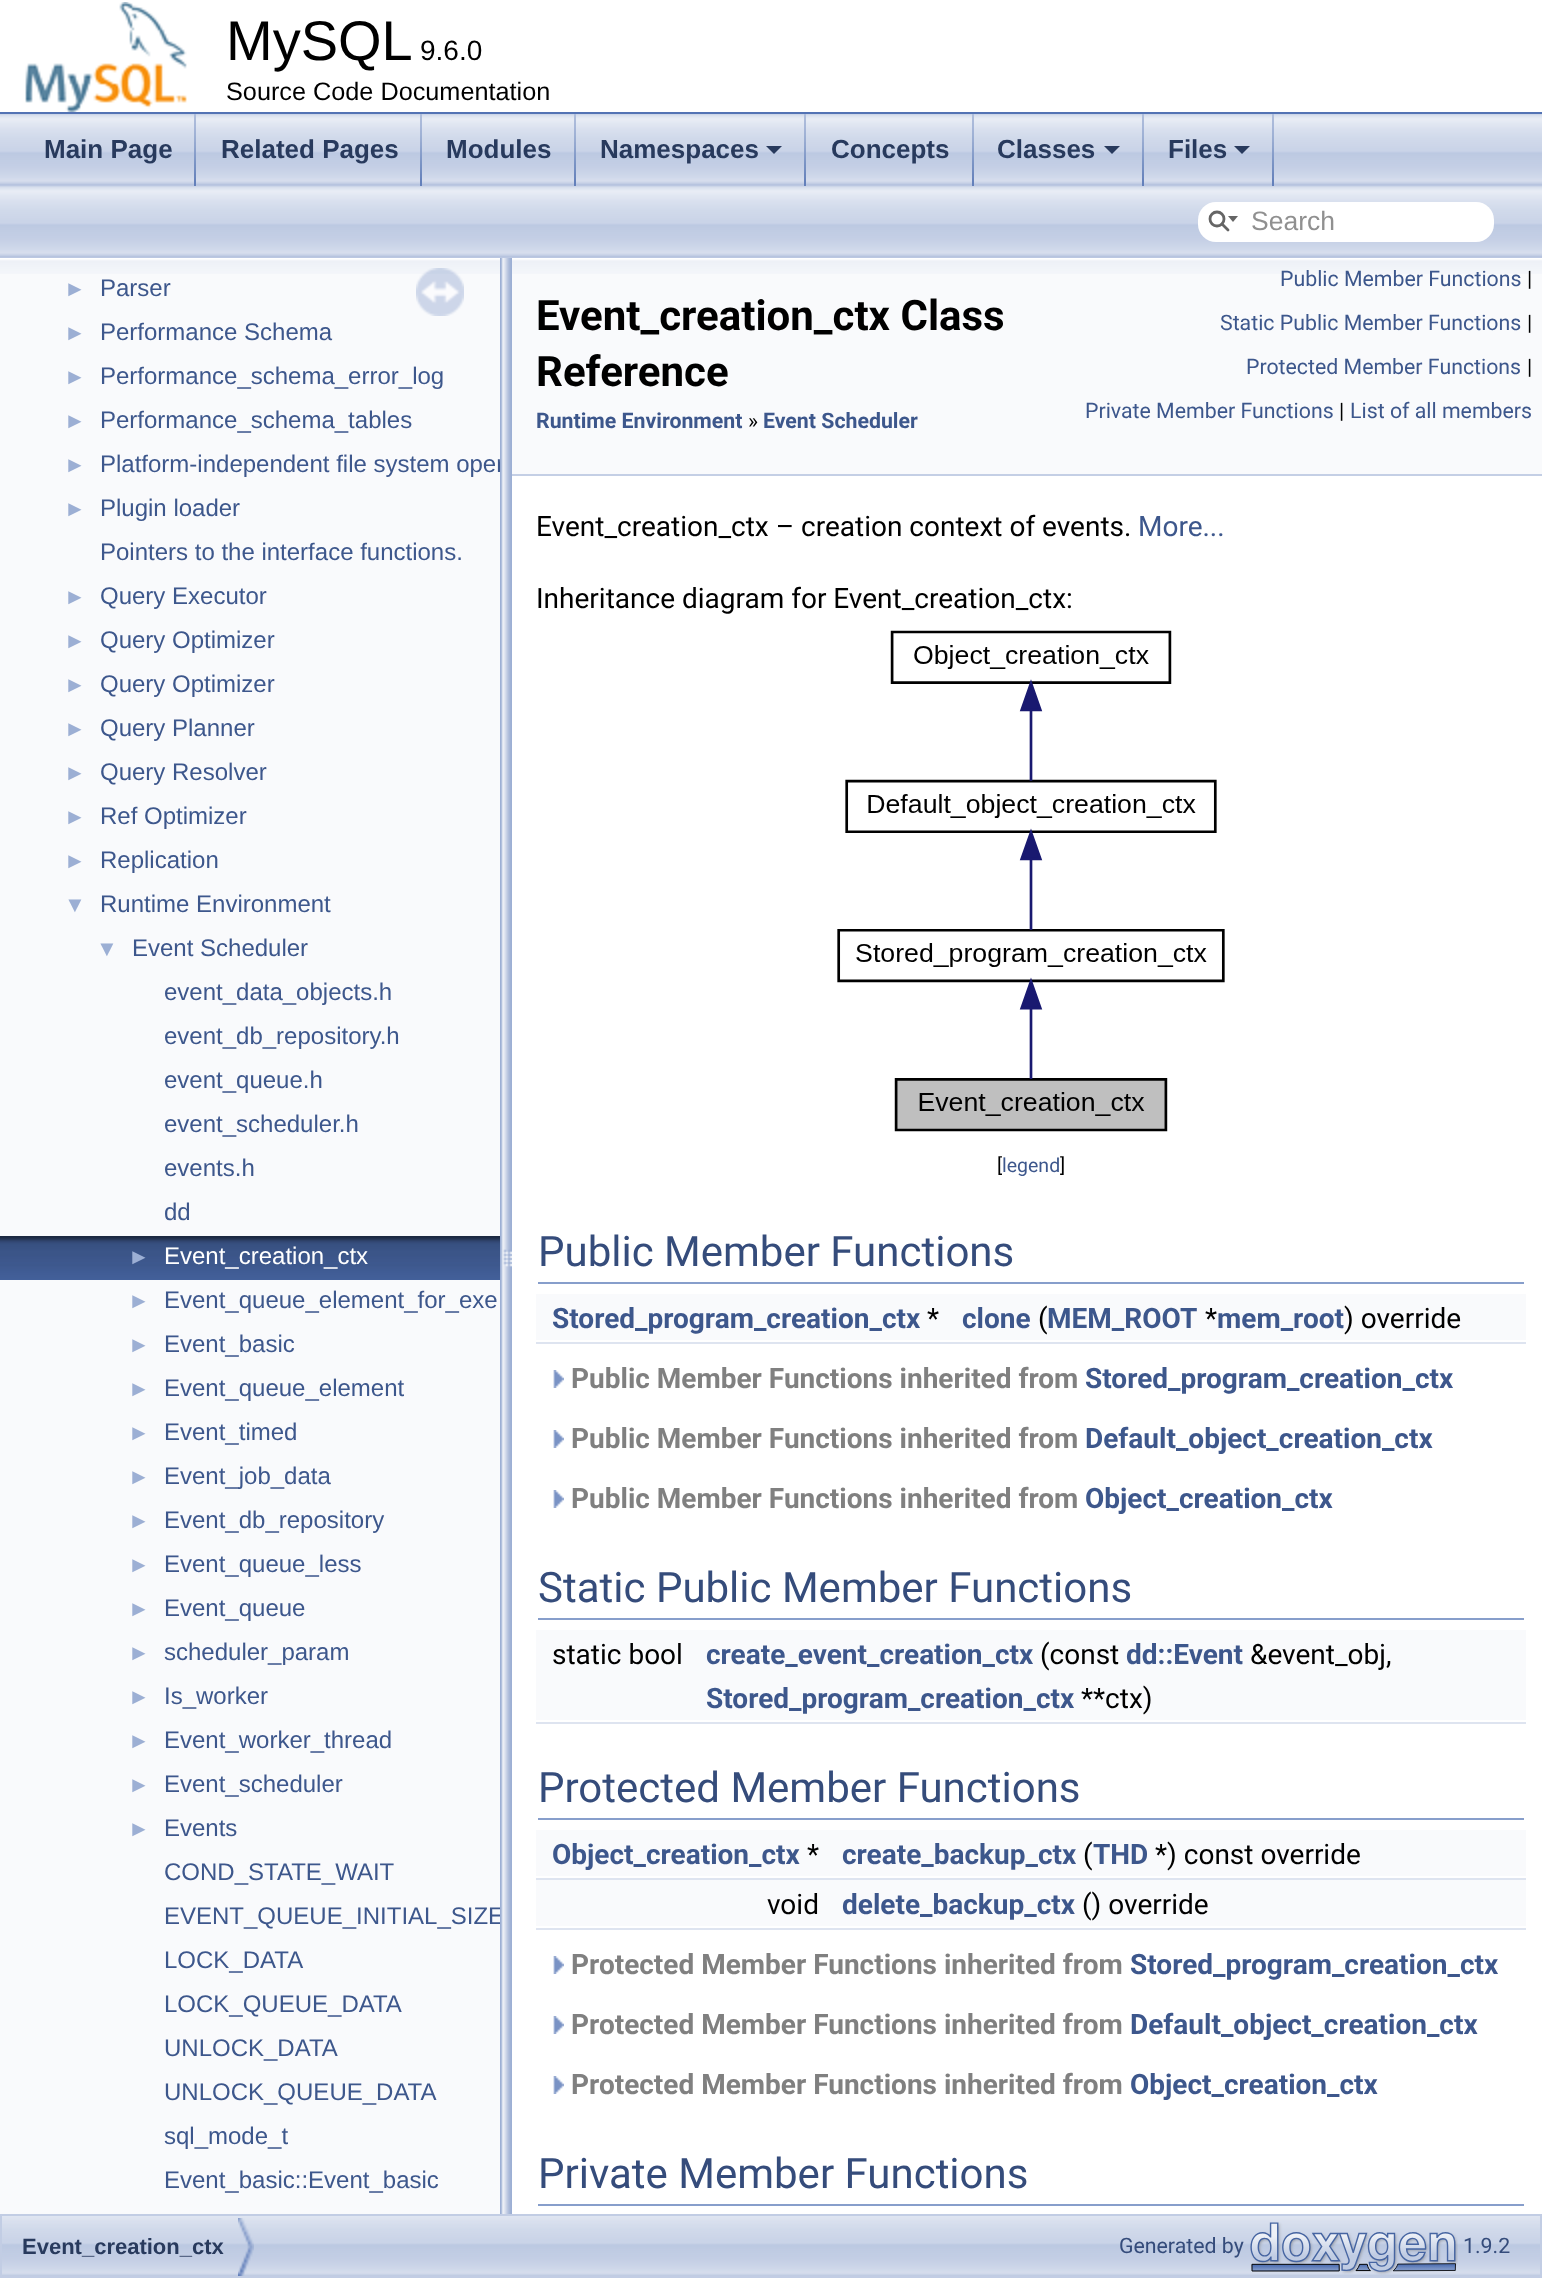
<!DOCTYPE html>
<meta charset="utf-8">
<style>body { margin: 0 } canvas { display: block }</style>
<canvas id="canvas" width="1542" height="2278"></canvas>
<script type="module">
  const canvas = document.getElementById("canvas");
  const g = canvas.getContext("2d");
  g.miterLimit = 4;
  g.fontKerning = "normal";
  function drawText(s, x, y, [font, color]) {
    g.font = font;
    g.fillStyle = color;
    g.fillText(s, x, y);
  }
  function fillBox(x, y, w, h, color) {
    g.fillStyle = color;
    g.fillRect(x, y, w, h);
  }
  function fillRounded(x, y, w, h, r, color) {
    g.fillStyle = color;
    g.beginPath();
    g.roundRect(x, y, w, h, r);
    g.fill();
  }
  async function drawPicture(src, x, y, w, h) {
    const img = new Image();
    img.src = src;
    await img.decode();
    g.drawImage(img, x, y, w, h);
  }

  const s1 = ["56px Liberation Sans", "#000000"];
  const s2 = ["28px Liberation Sans", "#000000"];
  const s3 = ["25.25px Liberation Sans", "#000000"];
  const s4 = ["bold 26px Liberation Sans", "#283A5D"];
  const s5 = ["26.5px Liberation Sans", "#909090"];
  const s6 = ["22px Liberation Sans", "#9CAFD4"];
  const s7 = ["24px Liberation Sans", "#3D578C"];
  const s8 = ["24px Liberation Sans", "#FFFFFF"];
  const s9 = ["bold 42px Roboto", "#000000"];
  const s10 = ["bold 21.3px Roboto", "#3D578C"];
  const s11 = ["21.3px Roboto", "#000000"];
  const s12 = ["21.3px Roboto", "#3D578C"];
  const s13 = ["28px Roboto", "#000000"];
  const s14 = ["28px Roboto", "#3D578C"];
  const s15 = ["19.5px Roboto", "#000000"];
  const s16 = ["19.5px Roboto", "#3D578C"];
  const s17 = ["42px Roboto", "#354C7B"];
  const s18 = ["bold 28px Roboto", "#3D578C"];
  const s19 = ["bold 28px Roboto", "#808080"];
  const s20 = ["bold 22px Liberation Sans", "#283A5D"];
  const s21 = ["21.3px Roboto", "#354C7B"];

  fillBox(0, 0, 1542, 2278, "#FFFFFF");
  fillBox(0, 112, 1542, 2, "#5373B4");
  await drawPicture("pic1.png", 25, 2, 162, 110);
  drawText("MySQL", 226, 60, s1);
  drawText("9.6.0", 420, 60, s2);
  drawText("Source Code Documentation", 226, 100, s3);
  await drawPicture("pic2.png", 0, 114, 1542, 144);
  await drawPicture("pic3.png", 194, 114, 2, 72);
  drawText("Main Page", 44, 158, s4);
  await drawPicture("pic3.png", 420, 114, 2, 72);
  drawText("Related Pages", 221, 158, s4);
  await drawPicture("pic3.png", 574, 114, 2, 72);
  drawText("Modules", 446, 158, s4);
  await drawPicture("pic3.png", 804, 114, 2, 72);
  drawText("Namespaces", 600, 158, s4);
  g.beginPath();
  g.moveTo(766, 146);
  g.lineTo(782, 146);
  g.lineTo(774, 154);
  g.closePath();
  g.fill();
  await drawPicture("pic3.png", 972, 114, 2, 72);
  drawText("Concepts", 831, 158, s4);
  await drawPicture("pic3.png", 1142, 114, 2, 72);
  drawText("Classes", 997, 158, s4);
  g.beginPath();
  g.moveTo(1104, 146);
  g.lineTo(1120, 146);
  g.lineTo(1112, 154);
  g.closePath();
  g.fill();
  await drawPicture("pic3.png", 1272, 114, 2, 72);
  drawText("Files", 1168, 158, s4);
  g.beginPath();
  g.moveTo(1234, 146);
  g.lineTo(1250, 146);
  g.lineTo(1242, 154);
  g.closePath();
  g.fill();
  fillRounded(1198, 202, 296, 40, 18, "#FFFFFF");
  g.beginPath();
  g.arc(1217, 219, 7, 0, Math.PI * 2);
  g.strokeStyle = "#656565";
  g.lineWidth = 2.8;
  g.stroke();
  g.fillStyle = "#656565";
  g.beginPath();
  g.moveTo(1228, 216);
  g.lineTo(1233, 222);
  g.lineTo(1238, 216);
  g.closePath();
  g.fill();
  g.beginPath();
  g.moveTo(1222, 224);
  g.lineTo(1228, 230);
  g.lineCap = "round";
  g.stroke();
  drawText("Search", 1251, 230, s5);
  fillBox(0, 274, 500, 1940, "#F9FAFC");
  await drawPicture("pic4.png", 0, 258, 500, 16);
  await drawPicture("pic5.png", 416, 268, 48, 48);
  drawText("►", 64, 296, s6);
  drawText("Parser", 100, 296, s7);
  drawText("►", 64, 340, s6);
  drawText("Performance Schema", 100, 340, s7);
  drawText("►", 64, 384, s6);
  drawText("Performance_schema_error_log", 100, 384, s7);
  drawText("►", 64, 428, s6);
  drawText("Performance_schema_tables", 100, 428, s7);
  drawText("►", 64, 472, s6);
  drawText("Platform-independent file system oper", 100, 472, s7);
  drawText("►", 64, 516, s6);
  drawText("Plugin loader", 100, 516, s7);
  drawText("Pointers to the interface functions.", 100, 560, s7);
  drawText("►", 64, 604, s6);
  drawText("Query Executor", 100, 604, s7);
  drawText("►", 64, 648, s6);
  drawText("Query Optimizer", 100, 648, s7);
  drawText("►", 64, 692, s6);
  drawText("Query Optimizer", 100, 692, s7);
  drawText("►", 64, 736, s6);
  drawText("Query Planner", 100, 736, s7);
  drawText("►", 64, 780, s6);
  drawText("Query Resolver", 100, 780, s7);
  drawText("►", 64, 824, s6);
  drawText("Ref Optimizer", 100, 824, s7);
  drawText("►", 64, 868, s6);
  drawText("Replication", 100, 868, s7);
  drawText("▼", 64, 912, s6);
  drawText("Runtime Environment", 100, 912, s7);
  drawText("▼", 96, 956, s6);
  drawText("Event Scheduler", 132, 956, s7);
  drawText("event_data_objects.h", 164, 1000, s7);
  drawText("event_db_repository.h", 164, 1044, s7);
  drawText("event_queue.h", 164, 1088, s7);
  drawText("event_scheduler.h", 164, 1132, s7);
  drawText("events.h", 164, 1176, s7);
  drawText("dd", 164, 1220, s7);
  await drawPicture("pic6.png", 0, 1236, 500, 44);
  drawText("►", 128, 1264, s6);
  drawText("Event_creation_ctx", 164, 1264, s8);
  drawText("►", 128, 1308, s6);
  drawText("Event_queue_element_for_exe", 164, 1308, s7);
  drawText("►", 128, 1352, s6);
  drawText("Event_basic", 164, 1352, s7);
  drawText("►", 128, 1396, s6);
  drawText("Event_queue_element", 164, 1396, s7);
  drawText("►", 128, 1440, s6);
  drawText("Event_timed", 164, 1440, s7);
  drawText("►", 128, 1484, s6);
  drawText("Event_job_data", 164, 1484, s7);
  drawText("►", 128, 1528, s6);
  drawText("Event_db_repository", 164, 1528, s7);
  drawText("►", 128, 1572, s6);
  drawText("Event_queue_less", 164, 1572, s7);
  drawText("►", 128, 1616, s6);
  drawText("Event_queue", 164, 1616, s7);
  drawText("►", 128, 1660, s6);
  drawText("scheduler_param", 164, 1660, s7);
  drawText("►", 128, 1704, s6);
  drawText("Is_worker", 164, 1704, s7);
  drawText("►", 128, 1748, s6);
  drawText("Event_worker_thread", 164, 1748, s7);
  drawText("►", 128, 1792, s6);
  drawText("Event_scheduler", 164, 1792, s7);
  drawText("►", 128, 1836, s6);
  drawText("Events", 164, 1836, s7);
  drawText("COND_STATE_WAIT", 164, 1880, s7);
  drawText("EVENT_QUEUE_INITIAL_SIZE", 164, 1924, s7);
  drawText("LOCK_DATA", 164, 1968, s7);
  drawText("LOCK_QUEUE_DATA", 164, 2012, s7);
  drawText("UNLOCK_DATA", 164, 2056, s7);
  drawText("UNLOCK_QUEUE_DATA", 164, 2100, s7);
  drawText("sql_mode_t", 164, 2144, s7);
  drawText("Event_basic::Event_basic", 164, 2188, s7);
  await drawPicture("pic7.png", 500, 258, 12, 1956);
  fillBox(512, 274, 1030, 200, "#F9FAFC");
  await drawPicture("pic8.png", 512, 258, 1030, 16);
  fillBox(512, 474, 1030, 2, "#C4CFE5");
  drawText("Event_creation_ctx Class", 536, 330, s9);
  drawText("Reference", 536, 386, s9);
  drawText("Runtime Environment", 536, 428, s10);
  drawText("»", 748, 428, s11);
  drawText("Event Scheduler", 763, 428, s10);
  drawText("Public Member Functions", 1280, 286, s12);
  drawText("|", 1527, 286, s11);
  drawText("Static Public Member Functions", 1220, 330, s12);
  drawText("|", 1527, 330, s11);
  drawText("Protected Member Functions", 1246, 374, s12);
  drawText("|", 1527, 374, s11);
  drawText("Private Member Functions", 1085, 418, s12);
  drawText("|", 1339, 418, s11);
  drawText("List of all members", 1350, 418, s12);
  drawText("Event_creation_ctx – creation context of events.", 536, 536, s13);
  drawText("More...", 1138, 536, s14);
  drawText("Inheritance diagram for Event_creation_ctx:", 536, 608, s13);
  await drawPicture("pic9.png", 837, 630, 388, 502);
  drawText("[", 997, 1172, s15);
  drawText("legend", 1002, 1172, s16);
  drawText("]", 1060, 1172, s15);
  fillBox(538, 1282, 986, 2, "#879ECB");
  drawText("Public Member Functions", 538, 1266, s17);
  fillBox(536, 1294, 990, 46, "#F9FAFC");
  drawText("Stored_program_creation_ctx", 552, 1328, s18);
  drawText("*", 927, 1328, s13);
  drawText("clone", 962, 1328, s18);
  drawText("(", 1038, 1328, s13);
  drawText("MEM_ROOT", 1047, 1328, s18);
  drawText("*", 1205, 1328, s13);
  drawText("mem_root", 1217, 1328, s18);
  drawText(") override", 1344, 1328, s13);
  fillBox(536, 1342, 990, 2, "#DEE4F0");
  await drawPicture("pic10.png", 553, 1370, 11, 18);
  drawText("Public Member Functions inherited from", 571, 1388, s19);
  drawText("Stored_program_creation_ctx", 1085, 1388, s18);
  await drawPicture("pic10.png", 553, 1430, 11, 18);
  drawText("Public Member Functions inherited from", 571, 1448, s19);
  drawText("Default_object_creation_ctx", 1085, 1448, s18);
  await drawPicture("pic10.png", 553, 1490, 11, 18);
  drawText("Public Member Functions inherited from", 571, 1508, s19);
  drawText("Object_creation_ctx", 1085, 1508, s18);
  fillBox(538, 1618, 986, 2, "#879ECB");
  drawText("Static Public Member Functions", 538, 1602, s17);
  fillBox(536, 1630, 990, 90, "#F9FAFC");
  drawText("static bool", 552, 1664, s13);
  drawText("create_event_creation_ctx", 706, 1664, s18);
  drawText("(const", 1040, 1664, s13);
  drawText("dd::Event", 1126, 1664, s18);
  drawText("&event_obj,", 1250, 1664, s13);
  drawText("Stored_program_creation_ctx", 706, 1708, s18);
  drawText("**ctx)", 1081, 1708, s13);
  fillBox(536, 1722, 990, 2, "#DEE4F0");
  fillBox(538, 1818, 986, 2, "#879ECB");
  drawText("Protected Member Functions", 538, 1802, s17);
  fillBox(536, 1830, 990, 46, "#F9FAFC");
  drawText("Object_creation_ctx", 552, 1864, s18);
  drawText("*", 807, 1864, s13);
  drawText("create_backup_ctx", 842, 1864, s18);
  drawText("(", 1083, 1864, s13);
  drawText("THD", 1093, 1864, s18);
  drawText("*) const override", 1155, 1864, s13);
  fillBox(536, 1878, 990, 2, "#DEE4F0");
  fillBox(536, 1880, 990, 46, "#F9FAFC");
  drawText("void", 767, 1914, s13);
  drawText("delete_backup_ctx", 842, 1914, s18);
  drawText("() override", 1082, 1914, s13);
  fillBox(536, 1928, 990, 2, "#DEE4F0");
  await drawPicture("pic10.png", 553, 1956, 11, 18);
  drawText("Protected Member Functions inherited from", 571, 1974, s19);
  drawText("Stored_program_creation_ctx", 1130, 1974, s18);
  await drawPicture("pic10.png", 553, 2016, 11, 18);
  drawText("Protected Member Functions inherited from", 571, 2034, s19);
  drawText("Default_object_creation_ctx", 1130, 2034, s18);
  await drawPicture("pic10.png", 553, 2076, 11, 18);
  drawText("Protected Member Functions inherited from", 571, 2094, s19);
  drawText("Object_creation_ctx", 1130, 2094, s18);
  fillBox(538, 2204, 986, 2, "#879ECB");
  drawText("Private Member Functions", 538, 2188, s17);
  await drawPicture("pic11.png", 2, 2216, 1538, 60);
  g.strokeStyle = "#C2CDE4";
  g.lineWidth = 2;
  g.strokeRect(1, 2215, 1540, 62);
  await drawPicture("pic12.png", 238, 2218, 16, 58);
  drawText("Event_creation_ctx", 22, 2254, s20);
  drawText("Generated by", 1119, 2253, s21);
  await drawPicture("pic13.png", 1250, 2222, 208, 53);
  drawText("1.9.2", 1463, 2253, s21);
</script>
